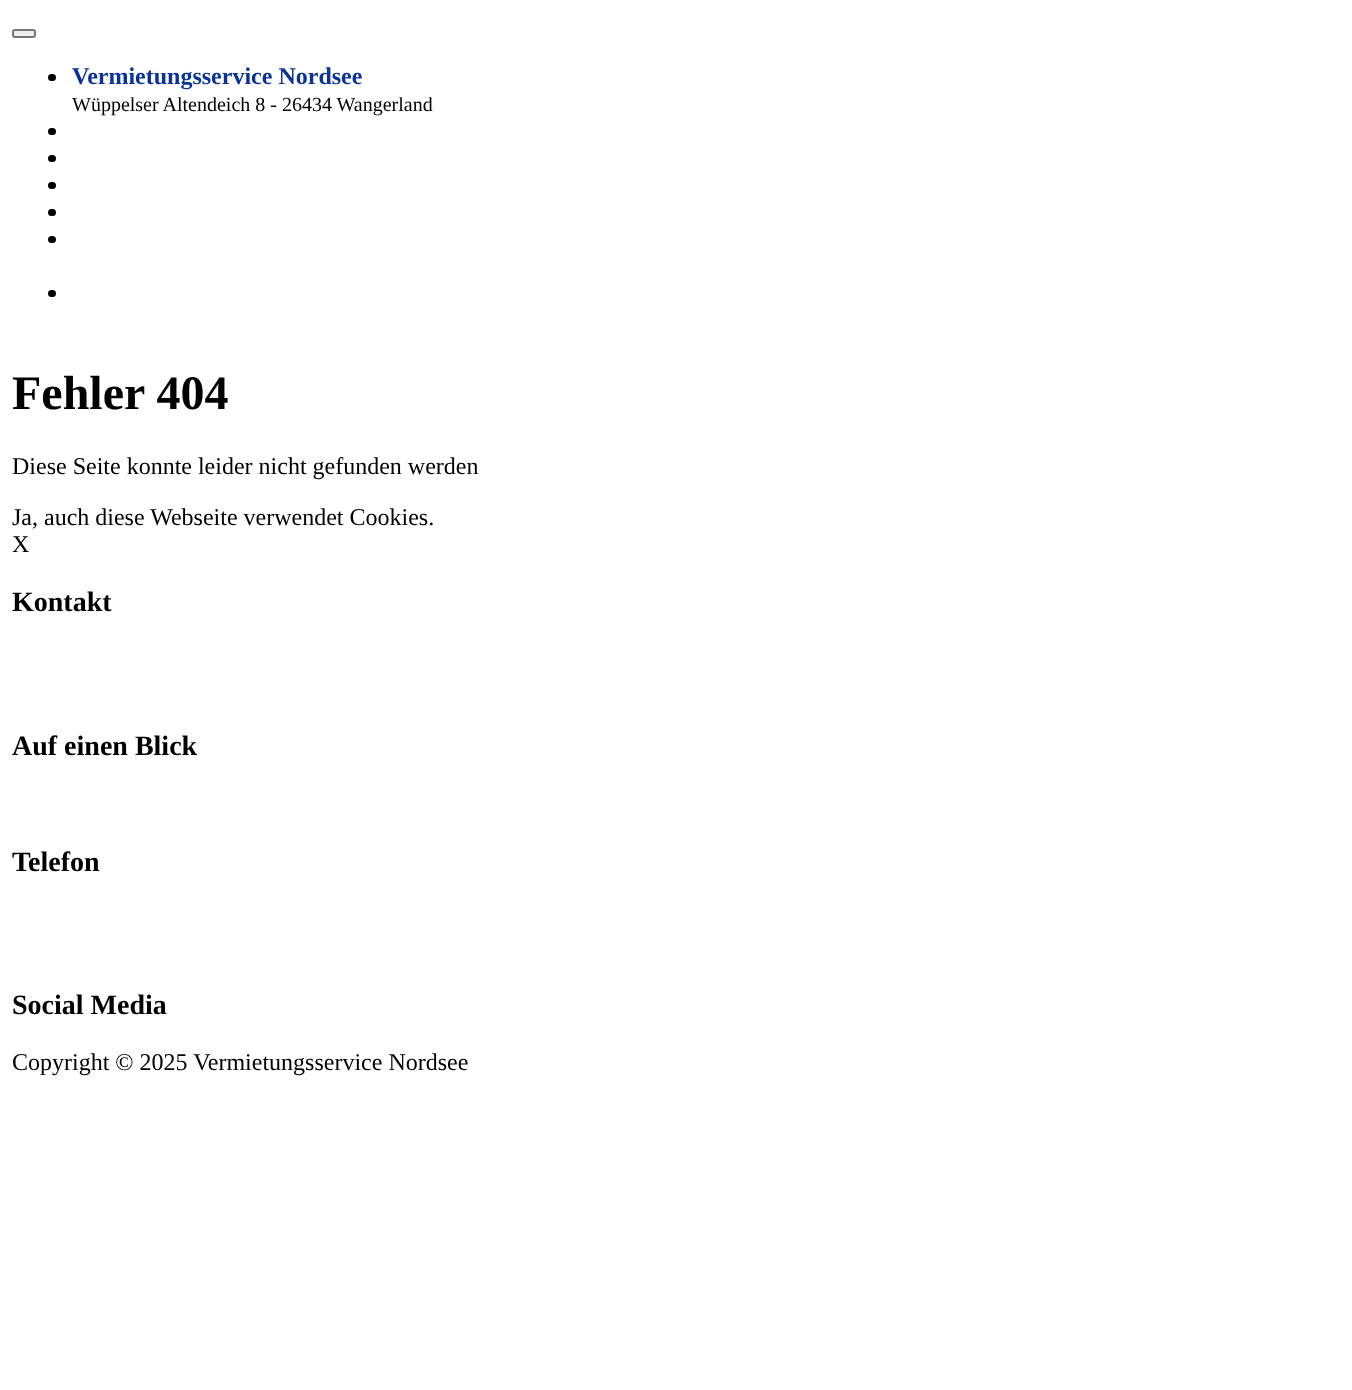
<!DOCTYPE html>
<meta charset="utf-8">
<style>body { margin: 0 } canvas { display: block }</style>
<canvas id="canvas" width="1352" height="1390"></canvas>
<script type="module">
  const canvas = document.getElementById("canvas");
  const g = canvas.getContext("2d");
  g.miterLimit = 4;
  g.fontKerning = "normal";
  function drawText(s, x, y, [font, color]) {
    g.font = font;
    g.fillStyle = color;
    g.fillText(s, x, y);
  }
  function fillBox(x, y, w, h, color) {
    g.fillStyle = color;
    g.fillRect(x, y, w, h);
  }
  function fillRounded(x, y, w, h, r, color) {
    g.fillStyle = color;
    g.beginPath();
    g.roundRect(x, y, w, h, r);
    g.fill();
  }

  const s1 = ["bold 24px Liberation Serif", "#093399"];
  const s2 = ["20px Liberation Serif", "#000000"];
  const s3 = ["bold 48px Liberation Serif", "#000000"];
  const s4 = ["24px Liberation Serif", "#000000"];
  const s5 = ["bold 28px Liberation Serif", "#000000"];

  fillBox(0, 0, 1352, 1390, "#FFFFFF");
  g.fillStyle = "#EFEFEF";
  g.beginPath();
  g.roundRect(13, 30, 22, 7, 2);
  g.fill();
  g.strokeStyle = "#767676";
  g.lineWidth = 2;
  g.stroke();
  fillRounded(48, 74, 8, 7, 3.5, "#000000");
  drawText("Vermietungsservice Nordsee", 72, 84, s1);
  drawText("Wüppelser Altendeich 8 - 26434 Wangerland", 72, 111, s2);
  fillRounded(48, 128, 8, 7, 3.5, "#000000");
  fillRounded(48, 155, 8, 7, 3.5, "#000000");
  fillRounded(48, 182, 8, 7, 3.5, "#000000");
  fillRounded(48, 209, 8, 7, 3.5, "#000000");
  fillRounded(48, 236, 8, 7, 3.5, "#000000");
  fillRounded(48, 290, 8, 7, 3.5, "#000000");
  drawText("Fehler 404", 12, 409, s3);
  drawText("Diese Seite konnte leider nicht gefunden werden", 12, 474, s4);
  drawText("Ja, auch diese Webseite verwendet Cookies.", 12, 525, s4);
  drawText("X", 12, 552, s4);
  drawText("Kontakt", 12, 611, s5);
  drawText("Auf einen Blick", 12, 755, s5);
  drawText("Telefon", 12, 871, s5);
  drawText("Social Media", 12, 1014, s5);
  drawText("Copyright © 2025 Vermietungsservice Nordsee", 12, 1070, s4);
</script>
